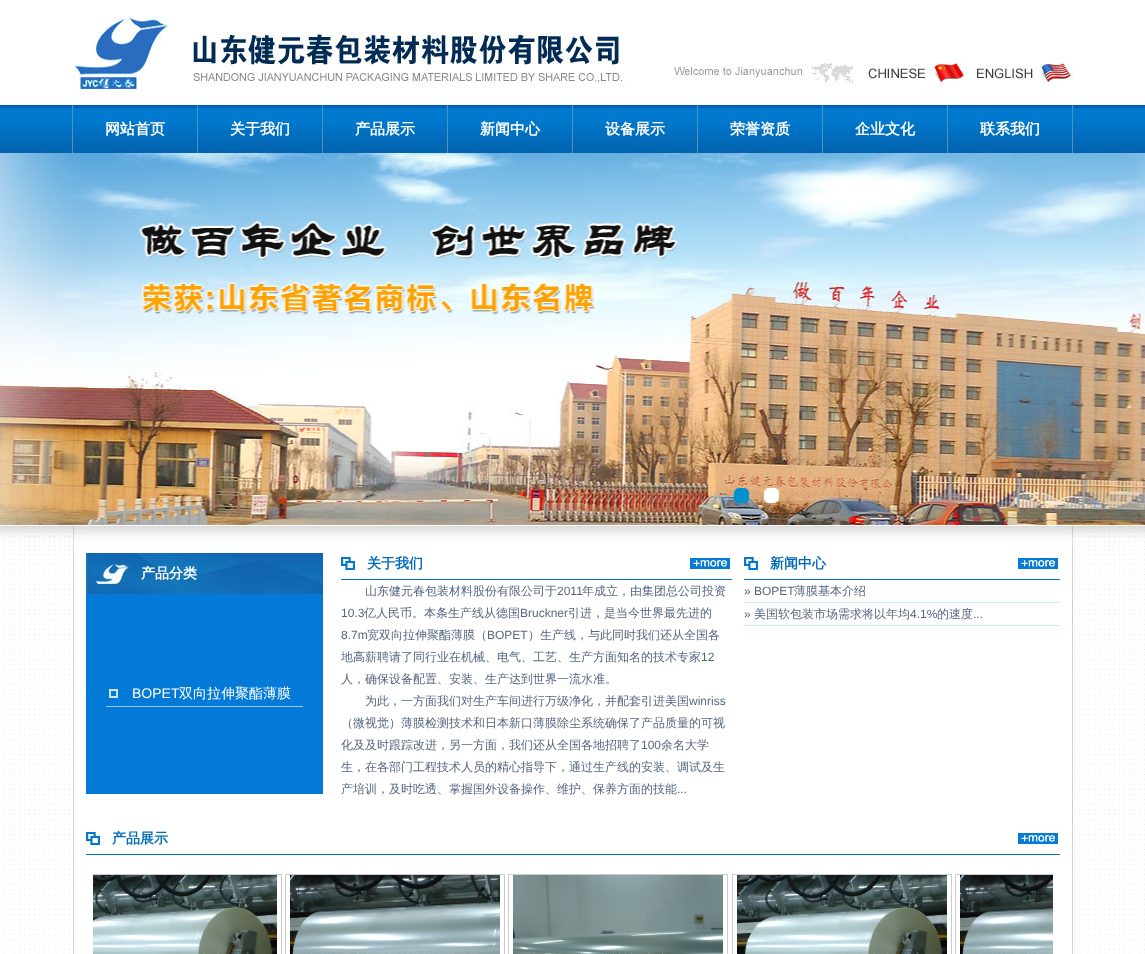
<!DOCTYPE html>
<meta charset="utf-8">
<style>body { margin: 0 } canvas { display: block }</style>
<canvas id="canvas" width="1145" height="954"></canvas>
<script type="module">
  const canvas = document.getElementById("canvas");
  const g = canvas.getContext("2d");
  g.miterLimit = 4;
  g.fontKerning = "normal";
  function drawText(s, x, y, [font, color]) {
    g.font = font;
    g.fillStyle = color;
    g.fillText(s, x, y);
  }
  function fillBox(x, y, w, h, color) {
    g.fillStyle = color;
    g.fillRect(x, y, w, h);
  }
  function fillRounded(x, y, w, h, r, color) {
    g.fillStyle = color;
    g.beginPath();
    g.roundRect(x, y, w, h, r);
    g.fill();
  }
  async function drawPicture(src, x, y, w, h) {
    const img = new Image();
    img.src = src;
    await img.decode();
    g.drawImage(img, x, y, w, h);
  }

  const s1 = ["bold 15px WenQuanYi Zen Hei", "#FFFFFF"];
  const s2 = ["bold 14px WenQuanYi Zen Hei", "#FFFFFF"];
  const s3 = ["14px Liberation Sans", "#FFFFFF"];
  const s4 = ["500 14px WenQuanYi Zen Hei", "#FFFFFF"];
  const s5 = ["bold 14px WenQuanYi Zen Hei", "#006BBA"];
  const s6 = ["500 12px WenQuanYi Zen Hei", "#56667F"];
  const s7 = ["12px Liberation Sans", "#56667F"];

  fillBox(0, 0, 1145, 954, "#FFFFFF");
  await drawPicture("pic1.png", 3, 525, 1142, 429);
  await drawPicture("pic2.png", 73, 16, 1000, 80);
  await drawPicture("pic3.png", 0, 105, 1145, 48);
  fillBox(72, 105, 1, 48, "#4C94C6");
  fillBox(197, 105, 1, 48, "#4C94C6");
  drawText("网站首页", 105, 134, s1);
  fillBox(322, 105, 1, 48, "#4C94C6");
  drawText("关于我们", 230, 134, s1);
  fillBox(447, 105, 1, 48, "#4C94C6");
  drawText("产品展示", 355, 134, s1);
  fillBox(572, 105, 1, 48, "#4C94C6");
  drawText("新闻中心", 480, 134, s1);
  fillBox(697, 105, 1, 48, "#4C94C6");
  drawText("设备展示", 605, 134, s1);
  fillBox(822, 105, 1, 48, "#4C94C6");
  drawText("荣誉资质", 730, 134, s1);
  fillBox(947, 105, 1, 48, "#4C94C6");
  drawText("企业文化", 855, 134, s1);
  fillBox(1072, 105, 1, 48, "#4C94C6");
  drawText("联系我们", 980, 134, s1);
  await drawPicture("pic4.png", 0, 153, 1145, 372);
  fillRounded(734, 488, 15, 15, 5, "#0092CE");
  fillRounded(764, 488, 15, 15, 5, "#FFFFFF");
  await drawPicture("pic5.png", 0, 526, 1145, 21);
  await drawPicture("pic6.png", 73, 525, 1000, 22);
  fillBox(74, 547, 998, 253, "#FFFFFF");
  fillBox(1072, 547, 1, 407, "#D2D2D2");
  fillBox(73, 547, 1, 407, "#D2D2D2");
  await drawPicture("pic7.png", 86, 553, 237, 41);
  drawText("产品分类", 141, 578, s2);
  fillBox(86, 594, 237, 200, "#037AD8");
  await drawPicture("pic8.png", 109, 689, 9, 9);
  fillBox(106, 706, 197, 1, "#9EC8F0");
  drawText("BOPET", 132, 698, s3);
  drawText("双向拉伸聚酯薄膜", 179, 698, s4);
  await drawPicture("pic9.png", 341, 557, 14, 13);
  fillBox(341, 579, 391, 1, "#0378C8");
  drawText("关于我们", 367, 568, s5);
  await drawPicture("pic10.png", 690, 557, 40, 13);
  drawText("山东健元春包装材料股份有限公司于", 365, 595, s6);
  drawText("2011", 557, 595, s7);
  drawText("年成立，由集团总公司投资", 582, 595, s6);
  drawText("10.3", 341, 617, s7);
  drawText("亿人民币。本条生产线从德国", 364, 617, s6);
  drawText("Bruckner", 520, 617, s7);
  drawText("引进，是当今世界最先进的", 568, 617, s6);
  drawText("8.7m", 341, 639, s7);
  drawText("宽双向拉伸聚酯薄膜（", 367, 639, s6);
  drawText("BOPET", 487, 639, s7);
  drawText("）生产线，与此同时我们还从全国各", 528, 639, s6);
  drawText("地高薪聘请了同行业在机械、电气、工艺、生产方面知名的技术专家", 341, 661, s6);
  drawText("12", 701, 661, s7);
  drawText("人，确保设备配置、安装、生产达到世界一流水准。", 341, 683, s6);
  drawText("为此，一方面我们对生产车间进行万级净化，并配套引进美国", 365, 705, s6);
  drawText("winriss", 689, 705, s7);
  drawText("（微视觉）薄膜检测技术和日本新口薄膜除尘系统确保了产品质量的可视", 341, 727, s6);
  drawText("化及及时跟踪改进，另一方面，我们还从全国各地招聘了", 341, 749, s6);
  drawText("100", 641, 749, s7);
  drawText("余名大学", 661, 749, s6);
  drawText("生，在各部门工程技术人员的精心指导下，通过生产线的安装、调试及生", 341, 771, s6);
  drawText("产培训，及时吃透、掌握国外设备操作、维护、保养方面的技能", 341, 793, s6);
  drawText("...", 677, 793, s7);
  await drawPicture("pic11.png", 744, 557, 14, 13);
  fillBox(744, 579, 316, 1, "#0378C8");
  drawText("新闻中心", 770, 568, s5);
  await drawPicture("pic10.png", 1018, 557, 40, 13);
  g.beginPath();
  g.moveTo(744, 602.5);
  g.lineTo(1060, 602.5);
  g.strokeStyle = "#99DCFD";
  g.setLineDash([1, 1]);
  g.stroke();
  drawText("» BOPET", 744, 595, s7);
  drawText("薄膜基本介绍", 794, 595, s6);
  g.beginPath();
  g.moveTo(744, 625.5);
  g.lineTo(1060, 625.5);
  g.stroke();
  drawText("»", 744, 618, s7);
  drawText("美国软包装市场需求将以年均", 754, 618, s6);
  drawText("4.1%", 910, 618, s7);
  drawText("的速度", 937, 618, s6);
  drawText("...", 973, 618, s7);
  fillBox(74, 801, 998, 153, "#FFFFFF");
  await drawPicture("pic9.png", 86, 832, 14, 13);
  fillBox(86, 854, 974, 1, "#0378C8");
  drawText("产品展示", 112, 843, s5);
  await drawPicture("pic10.png", 1018, 832, 40, 13);
  g.save();
  g.beginPath();
  g.rect(93, 870, 960, 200);
  g.clip();
  g.strokeStyle = "#CCCCCC";
  g.setLineDash([]);
  g.strokeRect(62.5, 874.5, 219, 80);
  g.restore();
  await drawPicture("pic12.png", 93, 875, 184, 79);
  g.strokeStyle = "#CCCCCC";
  g.setLineDash([]);
  g.strokeRect(285.5, 874.5, 219, 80);
  await drawPicture("pic13.png", 290, 875, 210, 79);
  g.strokeRect(508.5, 874.5, 219, 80);
  await drawPicture("pic14.png", 513, 875, 210, 79);
  g.strokeRect(732.5, 874.5, 219, 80);
  await drawPicture("pic15.png", 737, 875, 210, 79);
  g.save();
  g.beginPath();
  g.rect(93, 870, 960, 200);
  g.clip();
  g.strokeRect(955.5, 874.5, 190, 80);
  g.restore();
  await drawPicture("pic16.png", 960, 875, 93, 79);
</script>
